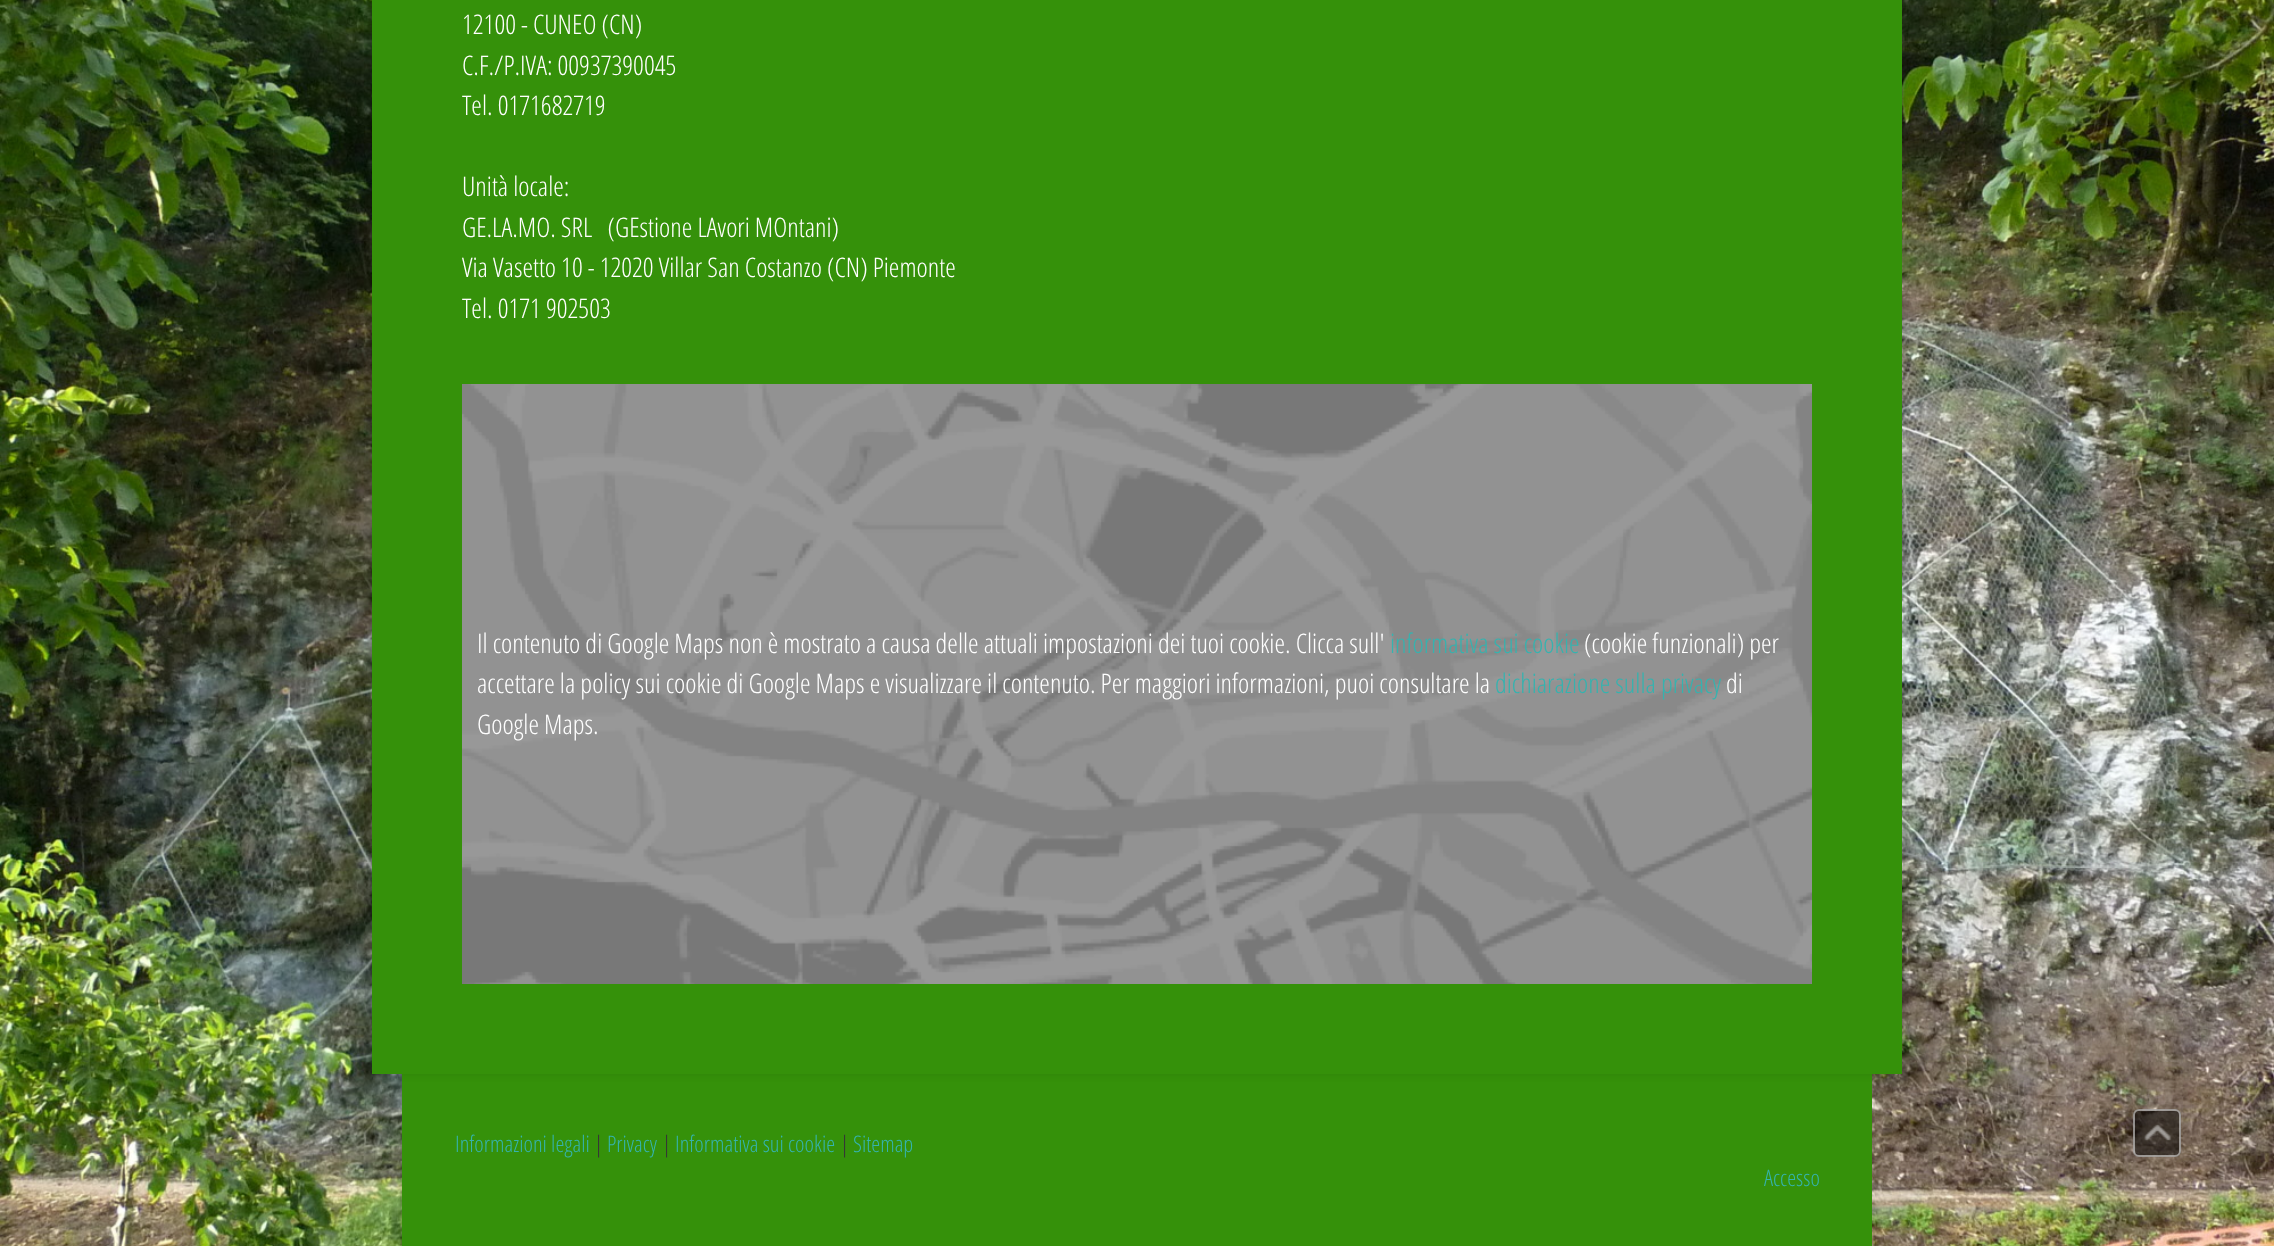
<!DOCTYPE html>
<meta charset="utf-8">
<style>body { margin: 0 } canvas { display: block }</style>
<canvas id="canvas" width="2274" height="1246"></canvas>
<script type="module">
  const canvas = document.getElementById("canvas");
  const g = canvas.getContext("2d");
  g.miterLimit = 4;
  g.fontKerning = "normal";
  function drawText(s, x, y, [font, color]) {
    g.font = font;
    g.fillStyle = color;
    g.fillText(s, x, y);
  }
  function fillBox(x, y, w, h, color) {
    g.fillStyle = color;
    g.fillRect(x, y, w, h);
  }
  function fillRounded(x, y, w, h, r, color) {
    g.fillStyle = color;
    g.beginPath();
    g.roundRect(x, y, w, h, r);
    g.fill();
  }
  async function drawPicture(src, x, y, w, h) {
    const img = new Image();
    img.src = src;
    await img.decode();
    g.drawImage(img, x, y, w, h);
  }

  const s1 = ["300 27px Open Sans Condensed", "#FFFFFF"];
  const s2 = ["300 27px Open Sans Condensed", "#35B3AF"];
  const s3 = ["300 22.75px Open Sans Condensed", "#35B3AF"];
  const s4 = ["300 22.75px Open Sans Condensed", "#363636"];

  fillBox(0, 0, 2274, 1246, "#FFFFFF");
  await drawPicture("pic1.png", 0, 0, 2274, 1246);
  g.fillStyle = "rgba(0, 0, 0, 0.1)";
  g.filter = "blur(4.5px)";
  g.beginPath();
  g.rect(402, -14, 1470, 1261);
  g.fill();
  g.filter = "none";
  fillBox(402, 1074, 1470, 172, "#35910A");
  g.fillStyle = "rgba(0, 0, 0, 0.1)";
  g.filter = "blur(4.5px)";
  g.beginPath();
  g.rect(372, -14, 1530, 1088);
  g.fill();
  g.filter = "none";
  fillBox(372, 0, 1530, 1074, "#35910A");
  drawText("12100 - CUNEO (CN)", 462, 34, s1);
  drawText("C.F./P.IVA: 00937390045", 462, 75, s1);
  drawText("Tel. 0171682719", 462, 115, s1);
  drawText("Unità locale:", 462, 196, s1);
  drawText("GE.LA.MO. SRL   (GEstione LAvori MOntani)", 462, 237, s1);
  drawText("Via Vasetto 10 - 12020 Villar San Costanzo (CN) Piemonte", 462, 277, s1);
  drawText("Tel. 0171 902503", 462, 318, s1);
  await drawPicture("pic2.png", 462, 384, 1350, 600);
  drawText("Il contenuto di Google Maps non è mostrato a causa delle attuali impostazioni dei tuoi cookie. Clicca sull'", 477, 653, s1);
  drawText("informativa sui cookie", 1390, 653, s2);
  drawText("(cookie funzionali) per", 1584, 653, s1);
  drawText("accettare la policy sui cookie di Google Maps e visualizzare il contenuto. Per maggiori informazioni, puoi consultare la", 477, 693, s1);
  drawText("dichiarazione sulla privacy", 1495, 693, s2);
  drawText("di", 1726, 693, s1);
  drawText("Google Maps.", 477, 734, s1);
  drawText("Informazioni legali", 455, 1152, s3);
  drawText("|", 594, 1152, s4);
  drawText("Privacy", 607, 1152, s3);
  drawText("|", 662, 1152, s4);
  drawText("Informativa sui cookie", 675, 1152, s3);
  drawText("|", 840, 1152, s4);
  drawText("Sitemap", 853, 1152, s3);
  drawText("Accesso", 1764, 1186, s3);
  fillRounded(2133, 1109, 48, 48, 6, "rgba(0, 0, 0, 0.5)");
  g.beginPath();
  g.roundRect(2134, 1110, 46, 46, 5);
  g.strokeStyle = "rgba(255, 255, 255, 0.5)";
  g.lineWidth = 2;
  g.stroke();
  await drawPicture("pic3.png", 2144, 1124, 28, 17);
</script>
